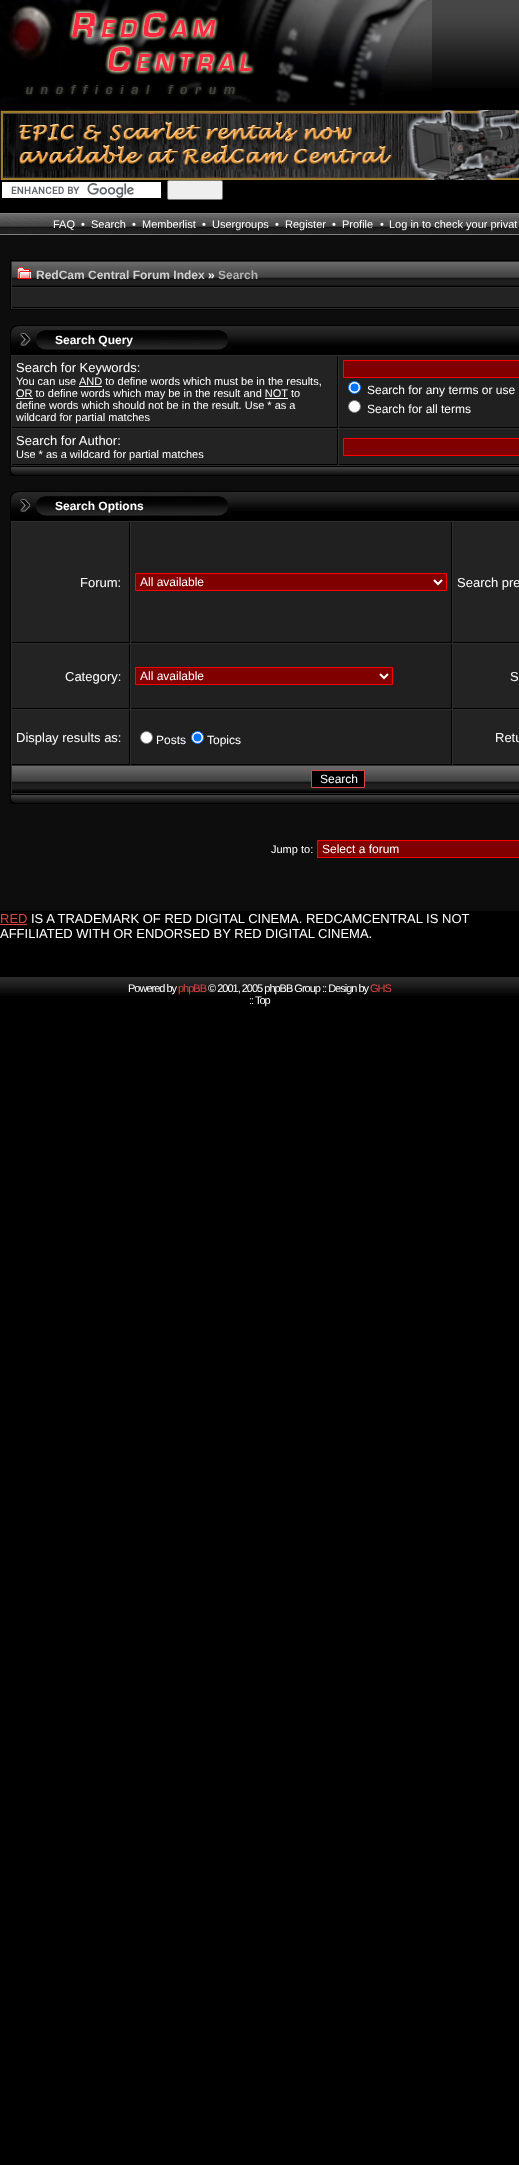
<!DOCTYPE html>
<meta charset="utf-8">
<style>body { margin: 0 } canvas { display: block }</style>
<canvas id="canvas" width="519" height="2165"></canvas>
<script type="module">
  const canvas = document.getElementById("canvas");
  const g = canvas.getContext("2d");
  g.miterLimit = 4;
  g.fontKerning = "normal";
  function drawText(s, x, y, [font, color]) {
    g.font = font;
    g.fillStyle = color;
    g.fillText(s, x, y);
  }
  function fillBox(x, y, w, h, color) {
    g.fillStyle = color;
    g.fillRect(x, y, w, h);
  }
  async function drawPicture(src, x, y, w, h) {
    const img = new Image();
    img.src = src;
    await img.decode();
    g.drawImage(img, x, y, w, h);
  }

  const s1 = ["11px Liberation Sans", "#FFFFFF"];
  const s2 = ["bold 12px Liberation Sans", "#D0D0D0"];
  const s3 = ["bold 12px Liberation Sans", "#FFFFFF"];
  const s4 = ["bold 12px Liberation Sans", "#B0B0B0"];
  const s5 = ["13px Liberation Sans", "#FFFFFF"];
  const s6 = ["12px Liberation Sans", "#FFFFFF"];
  const s7 = ["13px Liberation Sans", "#DD4444"];
  const s8 = ["11px Liberation Sans", "#DD4444"];

  fillBox(0, 0, 519, 2165, "#000000");
  fillBox(0, 235, 519, 676, "#0D0D0D");
  await drawPicture("pic1.png", 432, 0, 87, 88);
  await drawPicture("pic2.png", 0, 0, 432, 110);
  await drawPicture("pic3.png", 0, 110, 519, 70);
  fillBox(2, 182, 159, 16, "#FFFFFF");
  await drawPicture("pic4.png", 11, 183, 123, 15);
  g.fillStyle = "#EFEFEF";
  g.beginPath();
  g.roundRect(167.5, 180.5, 55, 19, 1.5);
  g.fill();
  g.strokeStyle = "#767676";
  g.stroke();
  await drawPicture("pic5.png", 0, 214, 519, 20);
  fillBox(0, 213, 519, 1, "#808080");
  fillBox(0, 234, 519, 1, "#808080");
  drawText("FAQ", 53, 228, s1);
  drawText("•", 81, 228, s1);
  drawText("Search", 91, 228, s1);
  drawText("•", 132, 228, s1);
  drawText("Memberlist", 142, 228, s1);
  drawText("•", 202, 228, s1);
  drawText("Usergroups", 212, 228, s1);
  drawText("•", 275, 228, s1);
  drawText("Register", 285, 228, s1);
  drawText("•", 332, 228, s1);
  drawText("Profile", 342, 228, s1);
  drawText("•", 380, 228, s1);
  drawText("Log in to check your privat", 389, 228, s1);
  g.fillStyle = "#2D2D2D";
  g.beginPath();
  g.rect(10.5, 260.5, 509, 49);
  g.fill();
  g.strokeStyle = "#000000";
  g.stroke();
  await drawPicture("pic6.png", 12, 262, 507, 24);
  fillBox(12, 286, 507, 1, "#000000");
  await drawPicture("pic7.png", 17, 267, 15, 12);
  drawText("RedCam Central Forum Index", 36, 279, s2);
  drawText("»", 208, 279, s3);
  drawText("Search", 218, 279, s4);
  fillBox(12, 288, 507, 19, "#232323");
  fillBox(12, 307, 507, 1, "#000000");
  fillBox(10, 350, 41, 4, "#000000");
  await drawPicture("pic8.png", 10, 325, 41, 25);
  fillBox(51, 325, 468, 29, "#000000");
  await drawPicture("pic9.png", 51, 326, 140, 24);
  drawText("Search Query", 55, 344, s3);
  await drawPicture("pic10.png", 191, 326, 41, 24);
  await drawPicture("pic11.png", 232, 326, 287, 19);
  g.fillStyle = "#2D2D2D";
  g.beginPath();
  g.rect(10.5, 354.5, 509, 112);
  g.fill();
  g.stroke();
  fillBox(12, 356, 325, 71, "#232323");
  fillBox(337, 356, 1, 72, "#000000");
  fillBox(12, 427, 326, 1, "#000000");
  drawText("Search for Keywords:", 16, 372, s5);
  drawText("You can use", 16, 385, s1);
  fillBox(79, 386, 23, 1, "#FFFFFF");
  drawText("AND to define words which must be in the results,", 79, 385, s1);
  fillBox(16, 398, 17, 1, "#FFFFFF");
  drawText("OR to define words which may be in the result and NOT to", 16, 397, s1);
  fillBox(265, 398, 23, 1, "#FFFFFF");
  drawText("define words which should not be in the result. Use * as a", 16, 409, s1);
  drawText("wildcard for partial matches", 16, 421, s1);
  fillBox(339, 356, 180, 71, "#202020");
  fillBox(339, 427, 180, 1, "#000000");
  g.fillStyle = "#800000";
  g.beginPath();
  g.rect(343.5, 360.5, 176, 17);
  g.fill();
  g.strokeStyle = "#FF0000";
  g.stroke();
  g.fillStyle = "#FFFFFF";
  g.beginPath();
  g.arc(354.5, 387.5, 6, 0, Math.PI * 2);
  g.fill();
  g.strokeStyle = "#0075FF";
  g.stroke();
  g.fillStyle = "#0075FF";
  g.beginPath();
  g.arc(354.5, 387.5, 4, 0, Math.PI * 2);
  g.fill();
  drawText("Search for any terms or use", 367, 394, s6);
  g.beginPath();
  g.arc(354.5, 406.5, 6, 0, Math.PI * 2);
  g.fill();
  g.strokeStyle = "#767676";
  g.stroke();
  drawText("Search for all terms", 367, 413, s6);
  fillBox(12, 429, 325, 35, "#232323");
  fillBox(337, 429, 1, 36, "#000000");
  fillBox(12, 464, 326, 1, "#000000");
  drawText("Search for Author:", 16, 445, s5);
  drawText("Use * as a wildcard for partial matches", 16, 458, s1);
  fillBox(339, 429, 180, 35, "#202020");
  fillBox(339, 464, 180, 1, "#000000");
  g.fillStyle = "#800000";
  g.beginPath();
  g.rect(343.5, 438.5, 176, 17);
  g.fill();
  g.strokeStyle = "#FF0000";
  g.stroke();
  await drawPicture("pic12.png", 10, 467, 9, 9);
  fillBox(19, 475, 500, 1, "#000000");
  await drawPicture("pic13.png", 19, 467, 500, 8);
  fillBox(10, 516, 41, 4, "#000000");
  await drawPicture("pic8.png", 10, 491, 41, 25);
  fillBox(51, 491, 468, 29, "#000000");
  await drawPicture("pic9.png", 51, 492, 140, 24);
  drawText("Search Options", 55, 510, s3);
  await drawPicture("pic10.png", 191, 492, 41, 24);
  await drawPicture("pic11.png", 232, 492, 287, 19);
  g.fillStyle = "#2D2D2D";
  g.beginPath();
  g.rect(10.5, 520.5, 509, 274);
  g.fill();
  g.strokeStyle = "#000000";
  g.stroke();
  fillBox(12, 522, 117, 120, "#232323");
  fillBox(129, 522, 1, 121, "#000000");
  fillBox(12, 642, 118, 1, "#000000");
  drawText("Forum:", 80, 587, s5);
  fillBox(131, 522, 320, 120, "#202020");
  fillBox(451, 522, 1, 121, "#000000");
  fillBox(131, 642, 321, 1, "#000000");
  g.fillStyle = "#800000";
  g.beginPath();
  g.rect(135.5, 573.5, 311, 17);
  g.fill();
  g.strokeStyle = "#FF0000";
  g.stroke();
  g.beginPath();
  g.moveTo(434, 580);
  g.lineTo(438, 584);
  g.lineTo(442, 580);
  g.strokeStyle = "#FFFFFF";
  g.lineWidth = 2;
  g.stroke();
  drawText("All available", 140, 586, s6);
  fillBox(453, 522, 66, 120, "#232323");
  fillBox(453, 642, 66, 1, "#000000");
  drawText("Search pre", 457, 587, s5);
  fillBox(12, 644, 117, 64, "#232323");
  fillBox(129, 644, 1, 65, "#000000");
  fillBox(12, 708, 118, 1, "#000000");
  drawText("Category:", 65, 681, s5);
  fillBox(131, 644, 320, 64, "#202020");
  fillBox(451, 644, 1, 65, "#000000");
  fillBox(131, 708, 321, 1, "#000000");
  g.fillStyle = "#800000";
  g.beginPath();
  g.rect(135.5, 667.5, 257, 17);
  g.fill();
  g.strokeStyle = "#FF0000";
  g.lineWidth = 1;
  g.stroke();
  g.beginPath();
  g.moveTo(380, 674);
  g.lineTo(384, 678);
  g.lineTo(388, 674);
  g.strokeStyle = "#FFFFFF";
  g.lineWidth = 2;
  g.stroke();
  drawText("All available", 140, 680, s6);
  fillBox(453, 644, 66, 64, "#232323");
  fillBox(453, 708, 66, 1, "#000000");
  drawText("S", 510, 681, s5);
  fillBox(12, 710, 117, 54, "#232323");
  fillBox(129, 710, 1, 55, "#000000");
  fillBox(12, 764, 118, 1, "#000000");
  drawText("Display results as:", 16, 742, s5);
  fillBox(131, 710, 320, 54, "#202020");
  fillBox(451, 710, 1, 55, "#000000");
  fillBox(131, 764, 321, 1, "#000000");
  g.fillStyle = "#FFFFFF";
  g.beginPath();
  g.arc(146.5, 737.5, 6, 0, Math.PI * 2);
  g.fill();
  g.strokeStyle = "#767676";
  g.lineWidth = 1;
  g.stroke();
  drawText("Posts", 156, 744, s6);
  g.beginPath();
  g.arc(197.5, 737.5, 6, 0, Math.PI * 2);
  g.fill();
  g.strokeStyle = "#0075FF";
  g.stroke();
  g.fillStyle = "#0075FF";
  g.beginPath();
  g.arc(197.5, 737.5, 4, 0, Math.PI * 2);
  g.fill();
  drawText("Topics", 207, 744, s6);
  fillBox(453, 710, 66, 54, "#232323");
  fillBox(453, 764, 66, 1, "#000000");
  drawText("Retu", 495, 742, s5);
  await drawPicture("pic14.png", 12, 766, 507, 26);
  fillBox(12, 792, 507, 1, "#000000");
  g.beginPath();
  g.rect(311.5, 770.5, 53, 17);
  g.fill();
  g.strokeStyle = "#DD4444";
  g.stroke();
  drawText("Search", 320, 783, s6);
  await drawPicture("pic12.png", 10, 795, 9, 9);
  fillBox(19, 803, 500, 1, "#000000");
  await drawPicture("pic13.png", 19, 795, 500, 8);
  drawText("Jump to:", 271, 853, s1);
  g.fillStyle = "#800000";
  g.beginPath();
  g.rect(317.5, 840.5, 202, 17);
  g.fill();
  g.strokeStyle = "#FF0000";
  g.stroke();
  drawText("Select a forum", 322, 853, s6);
  drawText("RED", 0, 923, s7);
  fillBox(0, 924, 27, 1, "#DD4444");
  drawText("IS A TRADEMARK OF RED DIGITAL CINEMA. REDCAMCENTRAL IS NOT", 31, 923, s5);
  drawText("AFFILIATED WITH OR ENDORSED BY RED DIGITAL CINEMA.", 0, 938, s5);
  await drawPicture("pic15.png", 0, 977, 519, 19);
  g.letterSpacing = "-1px";
  drawText("Powered by", 128, 992, s1);
  drawText("phpBB", 178, 992, s8);
  drawText("© 2001, 2005 phpBB Group :: Design by", 208, 992, s1);
  drawText("GHS", 370, 992, s8);
  drawText(":: Top", 249, 1004, s1);
</script>
